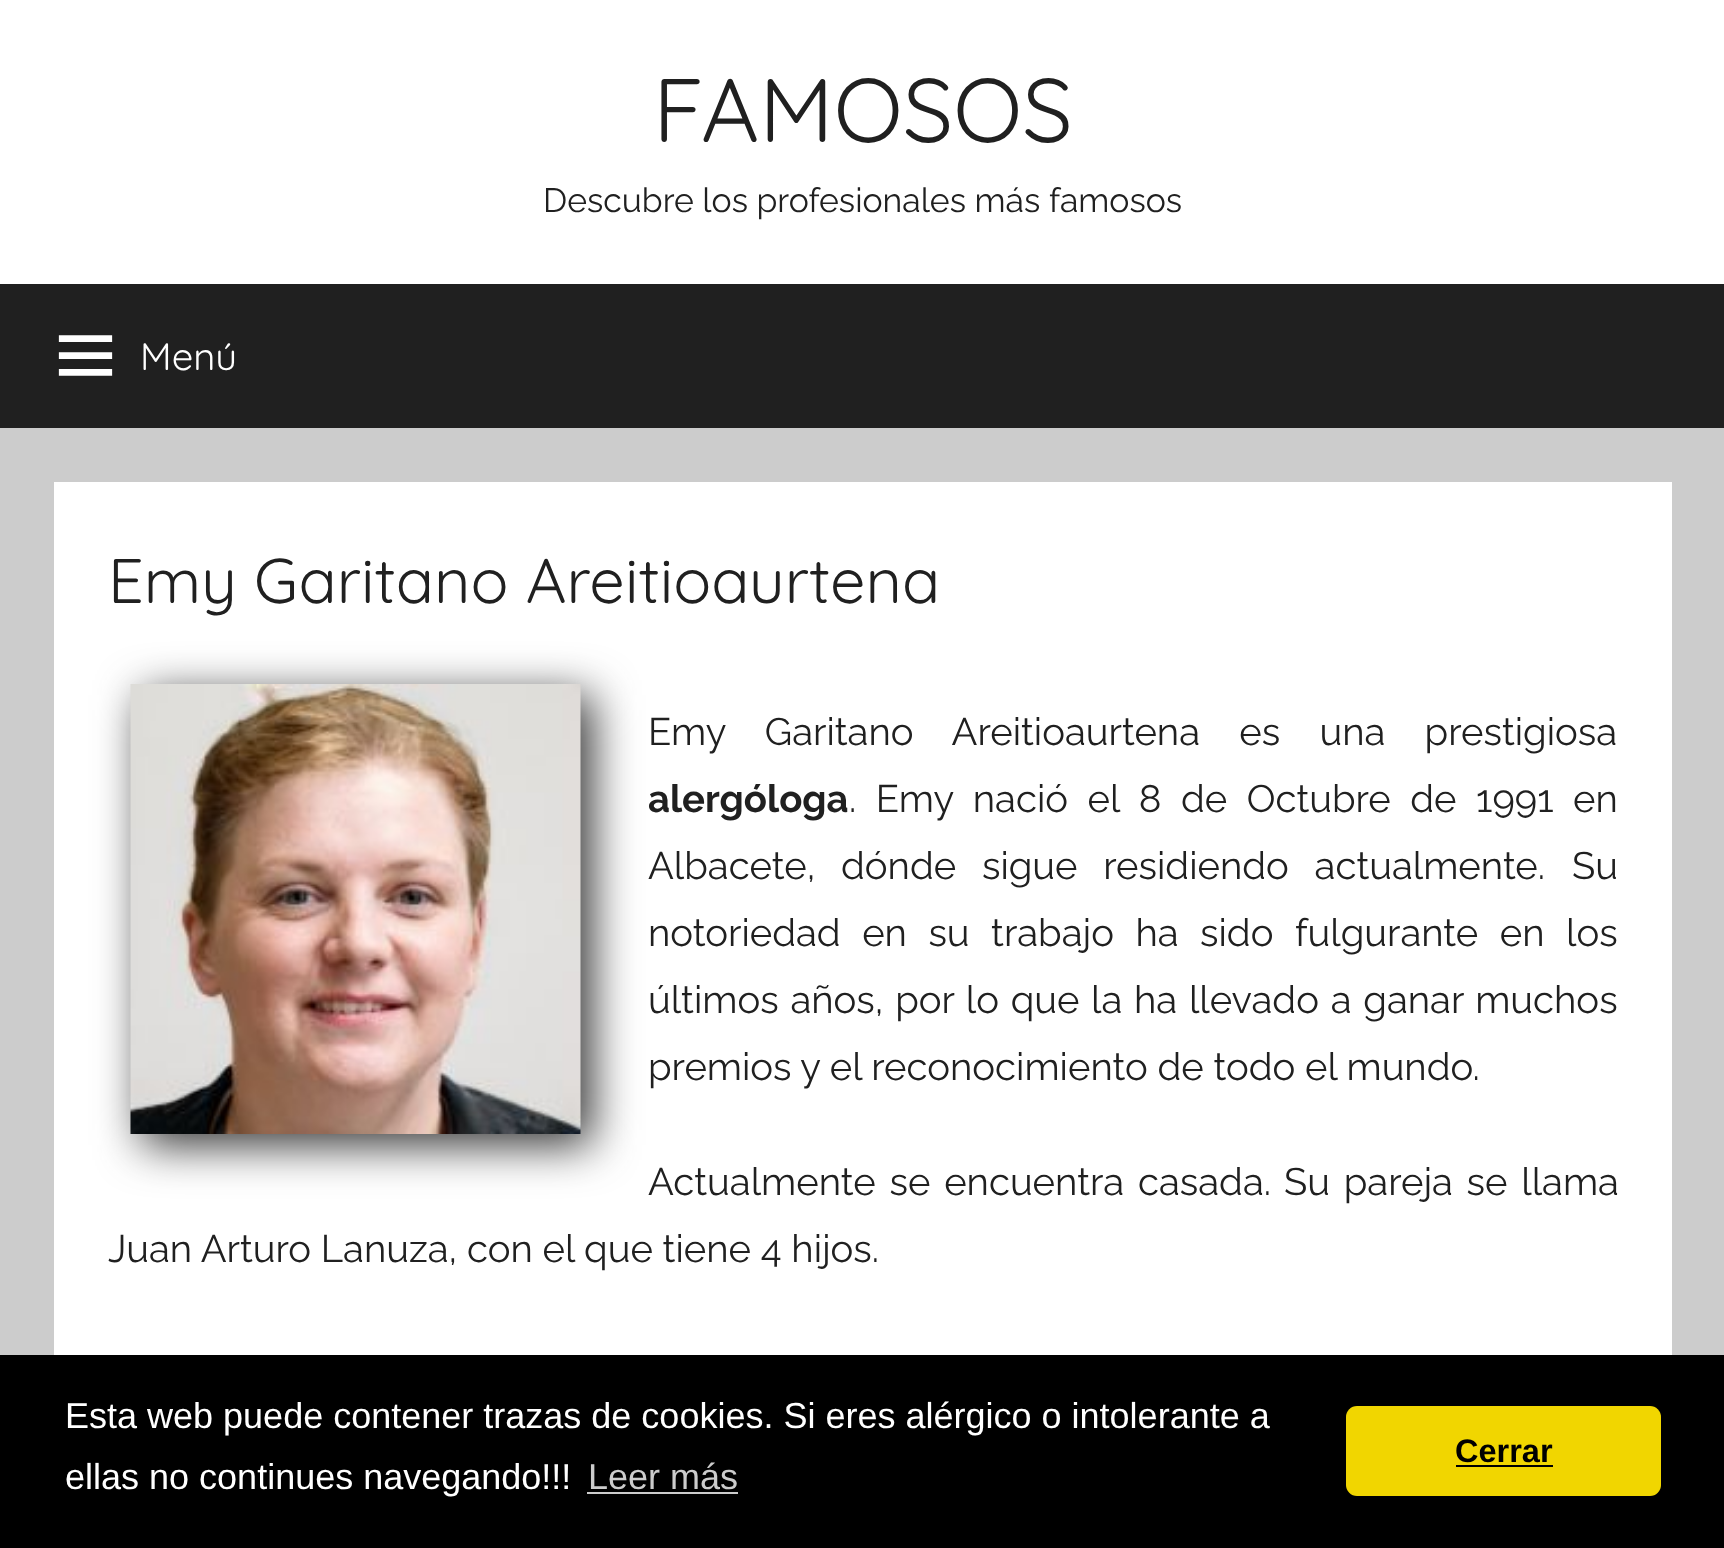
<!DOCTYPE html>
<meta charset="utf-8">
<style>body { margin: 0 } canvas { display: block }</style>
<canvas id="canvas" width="1724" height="1548"></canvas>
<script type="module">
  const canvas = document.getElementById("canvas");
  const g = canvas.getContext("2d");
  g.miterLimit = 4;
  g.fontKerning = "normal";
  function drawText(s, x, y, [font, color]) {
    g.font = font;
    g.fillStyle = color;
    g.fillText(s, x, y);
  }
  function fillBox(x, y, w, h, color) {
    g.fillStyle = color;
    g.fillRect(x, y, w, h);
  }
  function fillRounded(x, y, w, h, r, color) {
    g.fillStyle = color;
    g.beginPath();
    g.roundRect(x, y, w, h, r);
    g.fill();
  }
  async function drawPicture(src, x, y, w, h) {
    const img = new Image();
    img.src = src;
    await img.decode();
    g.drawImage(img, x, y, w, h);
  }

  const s1 = ["300 90px Quicksand", "#202020"];
  const s2 = ["100 33.75px Raleway", "#202020"];
  const s3 = ["300 38.25px Quicksand", "#FFFFFF"];
  const s4 = ["300 63px Quicksand", "#202020"];
  const s5 = ["100 38.25px Raleway", "#202020"];
  const s6 = ["100 38.25px 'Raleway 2'", "#202020"];
  const s7 = ["36px Liberation Sans", "#FFFFFF"];
  const s8 = ["36px Liberation Sans", "#CCCCCC"];
  const s9 = ["bold 32.5px Liberation Sans", "#000000"];

  fillBox(0, 0, 1724, 1548, "#CCCCCC");
  fillBox(0, 0, 1724, 284, "#FFFFFF");
  drawText("FAMOSOS", 653, 142, s1);
  drawText("Descubre los profesionales más famosos", 543, 212, s2);
  fillBox(0, 284, 1724, 144, "#202020");
  await drawPicture("pic1.png", 58, 335, 55, 41);
  drawText("Menú", 140, 370, s3);
  fillBox(54, 482, 1618, 873, "#FFFFFF");
  drawText("Emy Garitano Areitioaurtena", 108, 603, s4);
  g.fillStyle = "#333333";
  g.filter = "blur(22.5px)";
  g.beginPath();
  g.rect(142, 695, 450, 450);
  g.fill();
  g.filter = "none";
  await drawPicture("pic2.png", 130, 684, 451, 450);
  g.wordSpacing = "29.5px";
  drawText("Emy Garitano Areitioaurtena es una prestigiosa", 648, 745, s5);
  g.wordSpacing = "0px";
  drawText("alergóloga", 648, 812, s6);
  g.wordSpacing = "9.75px";
  drawText(". Emy nació el 8 de Octubre de 1991 en", 849, 812, s5);
  g.wordSpacing = "16px";
  drawText("Albacete, dónde sigue residiendo actualmente.", 648, 879, s5);
  g.wordSpacing = "0px";
  drawText("Su", 1572, 879, s5);
  g.wordSpacing = "11.75px";
  drawText("notoriedad en su trabajo ha sido fulgurante en los", 648, 946, s5);
  g.wordSpacing = "2px";
  drawText("últimos años, por lo que", 648, 1013, s5);
  g.wordSpacing = "0px";
  drawText("la", 1091, 1013, s5);
  g.wordSpacing = "2px";
  drawText("ha llevado a ganar muchos", 1134, 1013, s5);
  g.wordSpacing = "0px";
  drawText("premios y el reconocimiento de todo el mundo.", 648, 1080, s5);
  g.wordSpacing = "4px";
  drawText("Actualmente se encuentra casada.", 648, 1195, s5);
  drawText("Su pareja se llama", 1284, 1195, s5);
  g.wordSpacing = "0px";
  drawText("Juan Arturo Lanuza, con el que tiene 4 hijos.", 108, 1262, s5);
  fillBox(0, 1355, 1724, 193, "#000000");
  drawText("Esta web puede contener trazas de cookies. Si eres alérgico o intolerante a", 65, 1428, s7);
  drawText("ellas no continues navegando!!!", 65, 1489, s7);
  drawText("Leer más", 588, 1489, s8);
  fillBox(587, 1492, 151, 2, "#CCCCCC");
  fillRounded(1346, 1406, 315, 90, 11, "#F1D600");
  drawText("Cerrar", 1455, 1462, s9);
  fillBox(1456, 1465, 97, 2, "#000000");
</script>
